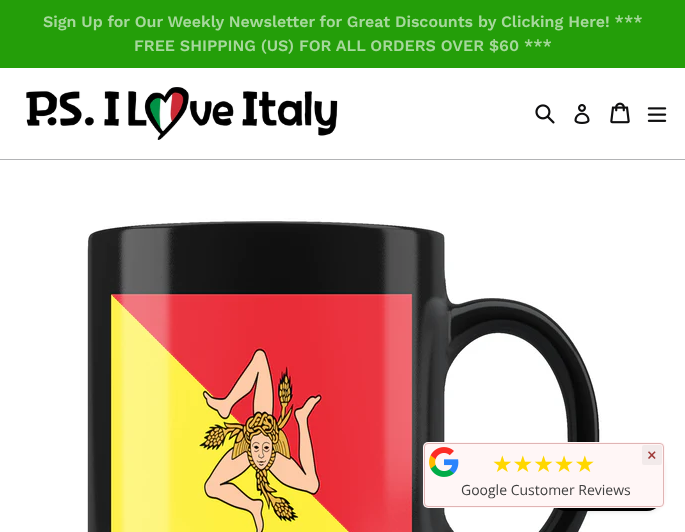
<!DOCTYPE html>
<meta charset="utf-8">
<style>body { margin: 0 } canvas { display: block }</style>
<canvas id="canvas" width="685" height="532"></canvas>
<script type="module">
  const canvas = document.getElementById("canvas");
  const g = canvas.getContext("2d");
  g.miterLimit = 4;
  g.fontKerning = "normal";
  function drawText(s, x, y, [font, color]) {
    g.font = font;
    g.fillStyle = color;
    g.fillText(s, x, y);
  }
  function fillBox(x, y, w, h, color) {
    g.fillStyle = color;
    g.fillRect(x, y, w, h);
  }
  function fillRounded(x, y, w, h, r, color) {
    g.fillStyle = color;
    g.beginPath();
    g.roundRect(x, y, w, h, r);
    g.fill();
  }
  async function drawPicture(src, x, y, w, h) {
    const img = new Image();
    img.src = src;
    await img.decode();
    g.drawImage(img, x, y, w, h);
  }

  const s1 = ["600 16px Work Sans", "#A7D89D"];
  const s2 = ["23px DejaVu Sans", "#FFD700"];
  const s3 = ["14px Open Sans", "#404040"];
  const s4 = ["bold 16px Open Sans", "#9F3A38"];

  fillBox(0, 0, 685, 532, "#FFFFFF");
  fillBox(0, 0, 685, 68, "#249E09");
  drawText("Sign Up for Our Weekly Newsletter for Great Discounts by Clicking Here! ***", 43, 27, s1);
  drawText("FREE SHIPPING (US) FOR ALL ORDERS OVER $60 ***", 134, 51, s1);
  fillBox(0, 159, 685, 1, "#B2B3B5");
  await drawPicture("pic1.png", 26, 87, 312, 53);
  await drawPicture("pic2.png", 535, 104, 20, 20);
  await drawPicture("pic3.png", 574, 104, 16, 20);
  await drawPicture("pic4.png", 610, 102, 20, 22);
  await drawPicture("pic5.png", 647, 107, 20, 15);
  await drawPicture("pic6.png", 87, 218, 515, 314);
  g.fillStyle = "rgba(0, 0, 0, 0.15)";
  g.filter = "blur(2.5px)";
  g.beginPath();
  g.roundRect(550, 451, 113, 60, 16);
  g.fill();
  g.filter = "none";
  fillRounded(550, 451, 113, 60, 16, "#000000");
  fillRounded(423, 442, 242, 66, 5, "#FFF6F6");
  g.beginPath();
  g.roundRect(424.5, 443.5, 239, 63, 3.5);
  g.strokeStyle = "#E0B4B4";
  g.stroke();
  await drawPicture("pic7.png", 429, 447, 30, 30);
  drawText("★★★★★", 492, 472, s2);
  drawText("Google Customer Reviews", 461, 495, s3);
  fillRounded(642, 445, 20, 20, 2, "#F2EAEA");
  drawText("×", 647, 461, s4);
</script>
